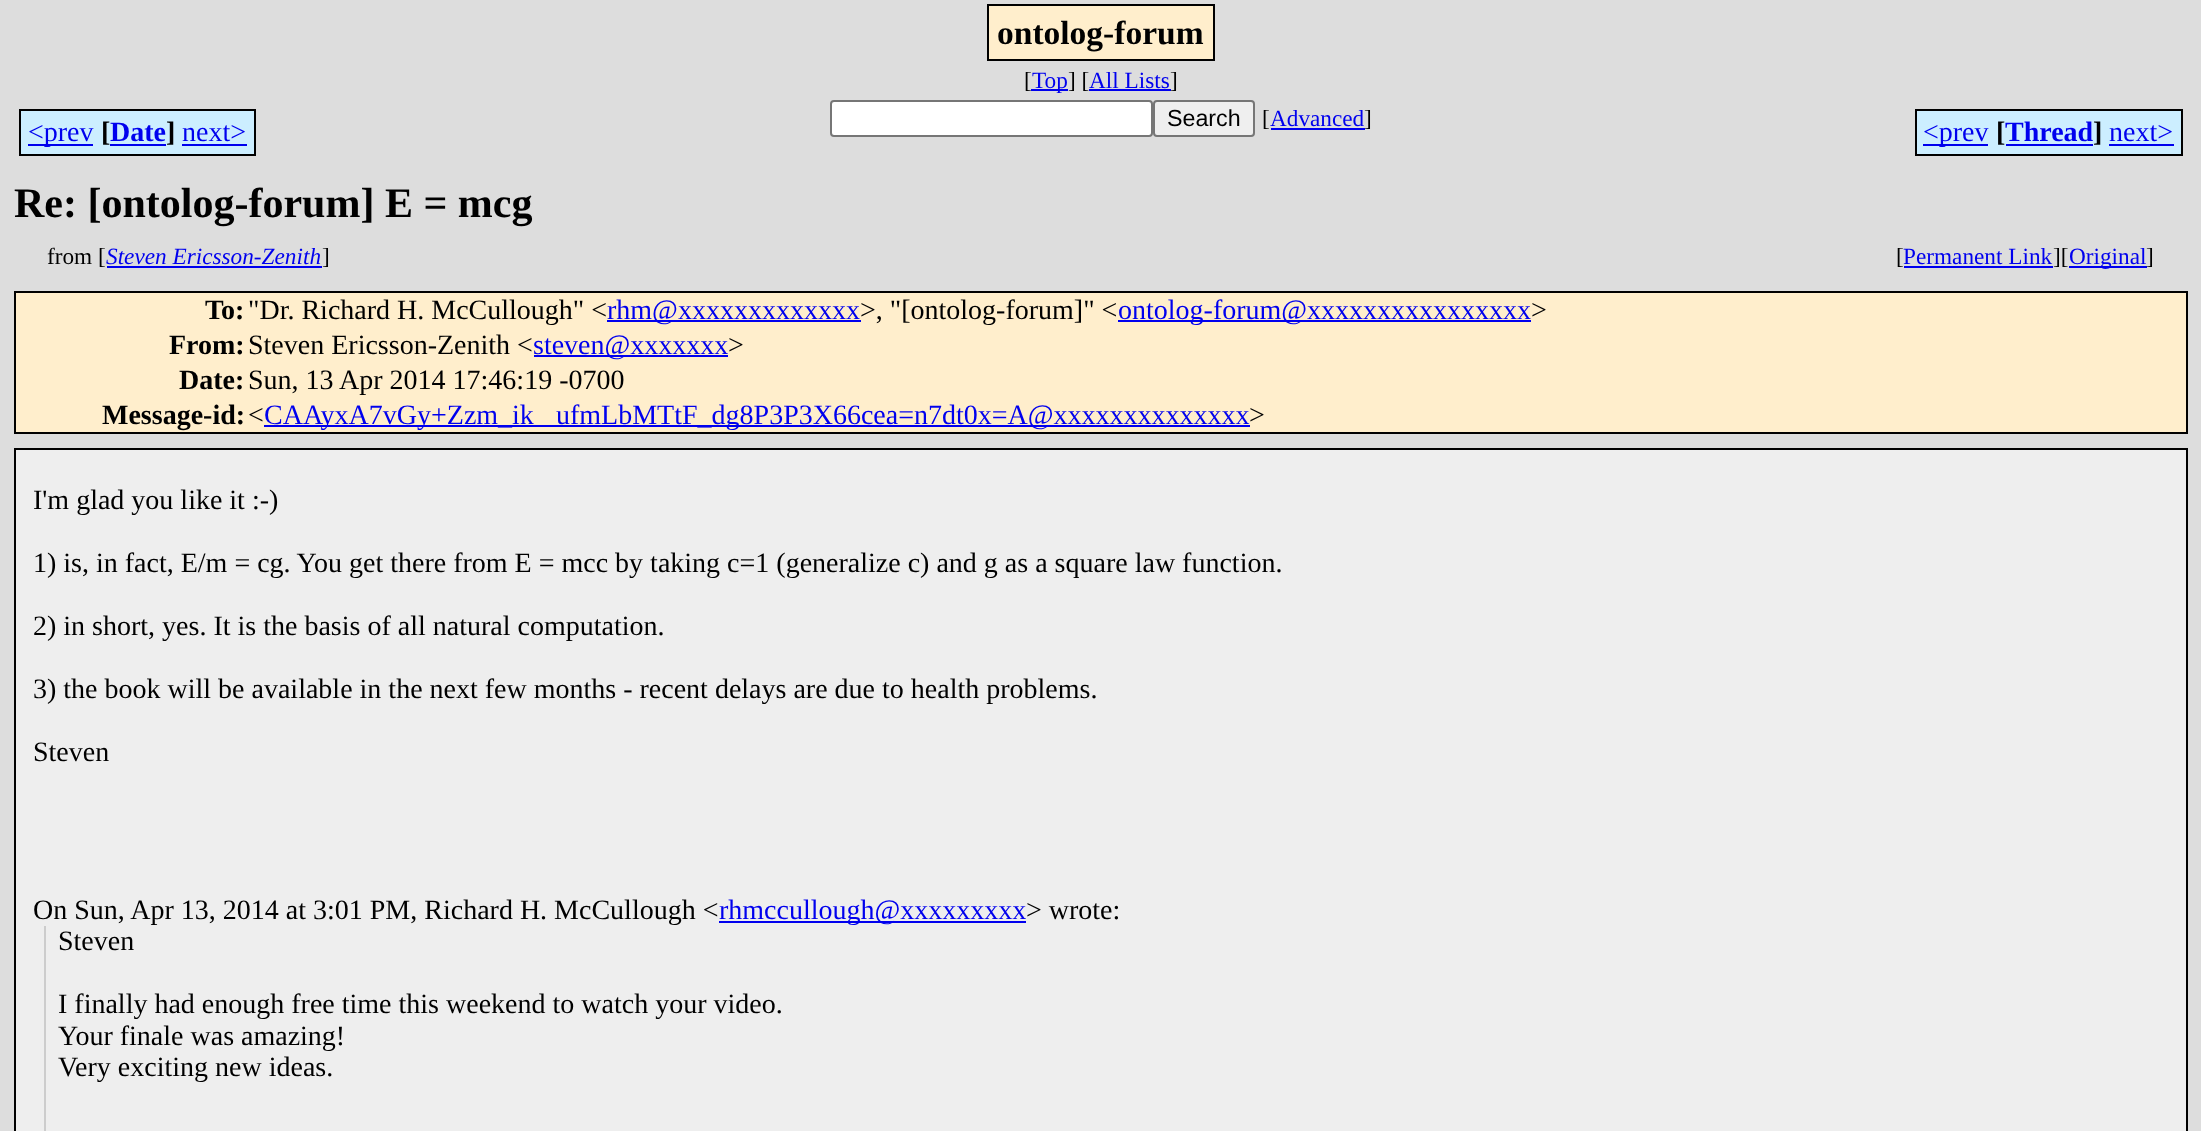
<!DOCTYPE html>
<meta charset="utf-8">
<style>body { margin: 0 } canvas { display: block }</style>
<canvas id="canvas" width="2201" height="1131"></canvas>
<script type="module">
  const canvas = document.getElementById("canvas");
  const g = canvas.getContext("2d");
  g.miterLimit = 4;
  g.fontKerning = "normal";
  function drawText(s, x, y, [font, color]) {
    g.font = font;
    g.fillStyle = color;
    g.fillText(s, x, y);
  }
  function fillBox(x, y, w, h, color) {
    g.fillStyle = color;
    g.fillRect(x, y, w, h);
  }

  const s1 = ["bold 33.5px Liberation Serif", "#000000"];
  const s2 = ["23.25px Liberation Serif", "#000000"];
  const s3 = ["23.25px Liberation Serif", "#0000EE"];
  const s4 = ["28px Liberation Serif", "#0000EE"];
  const s5 = ["bold 28px Liberation Serif", "#000000"];
  const s6 = ["bold 28px Liberation Serif", "#0000EE"];
  const s7 = ["23.25px Liberation Sans", "#000000"];
  const s8 = ["bold 42px Liberation Serif", "#000000"];
  const s9 = ["italic 23.25px Liberation Serif", "#0000EE"];
  const s10 = ["28px Liberation Serif", "#000000"];

  fillBox(0, 0, 2201, 1131, "#DDDDDD");
  g.fillStyle = "#FFEECC";
  g.beginPath();
  g.rect(988, 5, 226, 55);
  g.fill();
  g.strokeStyle = "#000000";
  g.lineWidth = 2;
  g.stroke();
  drawText("ontolog-forum", 997, 44, s1);
  drawText("[", 1024, 88, s2);
  fillBox(1031, 89, 37, 2, "#0000EE");
  drawText("Top", 1032, 88, s3);
  drawText("] [", 1068, 88, s2);
  drawText("All Lists", 1089, 88, s3);
  fillBox(1089, 89, 82, 2, "#0000EE");
  drawText("]", 1170, 88, s2);
  fillBox(21, 111, 72, 43, "#CCEEFF");
  fillBox(28, 144, 65, 2, "#0000EE");
  fillBox(93, 109, 7, 47, "#CCEEFF");
  drawText("<prev", 28, 141, s4);
  fillBox(19, 109, 74, 2, "#000000");
  fillBox(19, 154, 74, 2, "#000000");
  fillBox(19, 109, 2, 47, "#000000");
  fillBox(93, 154, 82, 2, "#000000");
  fillBox(100, 111, 75, 43, "#CCEEFF");
  drawText("[", 101, 141, s5);
  drawText("Date", 110, 141, s6);
  fillBox(93, 109, 82, 2, "#000000");
  drawText("]", 166, 141, s5);
  fillBox(110, 144, 56, 2, "#0000EE");
  fillBox(182, 111, 72, 43, "#CCEEFF");
  drawText("next>", 182, 141, s4);
  fillBox(175, 109, 7, 47, "#CCEEFF");
  fillBox(175, 109, 81, 2, "#000000");
  fillBox(175, 154, 7, 2, "#000000");
  fillBox(254, 109, 2, 47, "#000000");
  fillBox(182, 154, 74, 2, "#000000");
  fillBox(182, 144, 65, 2, "#0000EE");
  g.fillStyle = "#FFFFFF";
  g.beginPath();
  g.roundRect(831, 101, 321, 35, 3);
  g.fill();
  g.strokeStyle = "#767676";
  g.stroke();
  g.fillStyle = "#EFEFEF";
  g.beginPath();
  g.roundRect(1154, 101, 100, 35, 3);
  g.fill();
  g.stroke();
  drawText("Search", 1167, 126, s7);
  drawText("[", 1262, 126, s2);
  drawText("Advanced", 1270, 126, s3);
  drawText("]", 1364, 126, s2);
  fillBox(1271, 128, 94, 2, "#0000EE");
  fillBox(1917, 111, 71, 43, "#CCEEFF");
  fillBox(1923, 144, 65, 2, "#0000EE");
  fillBox(1988, 109, 7, 47, "#CCEEFF");
  drawText("<prev", 1923, 141, s4);
  fillBox(1915, 109, 73, 2, "#000000");
  fillBox(1915, 154, 73, 2, "#000000");
  fillBox(1915, 109, 2, 47, "#000000");
  fillBox(1988, 154, 114, 2, "#000000");
  fillBox(1995, 111, 107, 43, "#CCEEFF");
  drawText("[", 1996, 141, s5);
  drawText("Thread", 2005, 141, s6);
  fillBox(1988, 109, 114, 2, "#000000");
  drawText("]", 2093, 141, s5);
  fillBox(2102, 109, 7, 47, "#CCEEFF");
  fillBox(2102, 154, 7, 2, "#000000");
  fillBox(2006, 144, 87, 2, "#0000EE");
  fillBox(2109, 111, 72, 43, "#CCEEFF");
  drawText("next>", 2109, 141, s4);
  fillBox(2102, 109, 80, 2, "#000000");
  fillBox(2181, 109, 2, 47, "#000000");
  fillBox(2109, 154, 73, 2, "#000000");
  fillBox(2109, 144, 65, 2, "#0000EE");
  drawText("Re: [ontolog-forum] E = mcg", 14, 217, s8);
  drawText("from [", 47, 264, s2);
  drawText("Steven Ericsson-Zenith", 106, 264, s9);
  drawText("]", 322, 264, s2);
  fillBox(107, 266, 215, 2, "#0000EE");
  drawText("[", 1896, 264, s2);
  drawText("Permanent Link", 1903, 264, s3);
  drawText("][", 2053, 264, s2);
  fillBox(1904, 266, 149, 2, "#0000EE");
  fillBox(2069, 266, 78, 2, "#0000EE");
  drawText("Original", 2069, 264, s3);
  drawText("]", 2146, 264, s2);
  g.fillStyle = "#FFEECC";
  g.beginPath();
  g.rect(15, 292, 2172, 141);
  g.fill();
  g.strokeStyle = "#000000";
  g.stroke();
  drawText("To:", 205, 319, s5);
  drawText("\"Dr. Richard H. McCullough\" <", 248, 319, s10);
  fillBox(607, 320, 254, 2, "#0000EE");
  drawText("rhm@xxxxxxxxxxxxx", 607, 319, s4);
  drawText(">, \"[ontolog-forum]\" <", 860, 319, s10);
  fillBox(1118, 320, 413, 2, "#0000EE");
  drawText("ontolog-forum@xxxxxxxxxxxxxxxx", 1118, 319, s4);
  drawText(">", 1531, 319, s10);
  drawText("From:", 169, 354, s5);
  drawText("Steven Ericsson-Zenith <", 248, 354, s10);
  fillBox(534, 355, 194, 2, "#0000EE");
  drawText("steven@xxxxxxx", 533, 354, s4);
  drawText(">", 728, 354, s10);
  drawText("Date:", 179, 389, s5);
  drawText("Sun, 13 Apr 2014 17:46:19 -0700", 248, 389, s10);
  drawText("Message-id:", 102, 424, s5);
  drawText("<", 248, 424, s10);
  fillBox(264, 425, 986, 2, "#0000EE");
  drawText("CAAyxA7vGy+Zzm_ik", 264, 424, s4);
  drawText("ufmLbMTtF_dg8P3P3X66cea=n7dt0x=A@xxxxxxxxxxxxxx", 556, 424, s4);
  drawText(">", 1249, 424, s10);
  g.fillStyle = "#EEEEEE";
  g.beginPath();
  g.rect(15, 449, 2172, 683);
  g.fill();
  g.stroke();
  drawText("I'm glad you like it :-)", 33, 509, s10);
  drawText("1) is, in fact, E/m = cg. You get there from E = mcc by taking c=1 (generalize c) and g as a square law function.", 33, 572, s10);
  drawText("2) in short, yes. It is the basis of all natural computation.", 33, 635, s10);
  drawText("3) the book will be available in the next few months - recent delays are due to health problems.", 33, 698, s10);
  drawText("Steven", 33, 761, s10);
  drawText("On Sun, Apr 13, 2014 at 3:01 PM, Richard H. McCullough <", 33, 919, s10);
  fillBox(719, 921, 307, 2, "#0000EE");
  drawText("rhmccullough@xxxxxxxxx", 719, 919, s4);
  drawText("> wrote:", 1026, 919, s10);
  fillBox(44, 926, 2, 205, "#CCCCCC");
  drawText("Steven", 58, 950, s10);
  drawText("I finally had enough free time this weekend to watch your video.", 58, 1013, s10);
  drawText("Your finale was amazing!", 58, 1045, s10);
  drawText("Very exciting new ideas.", 58, 1076, s10);
</script>
